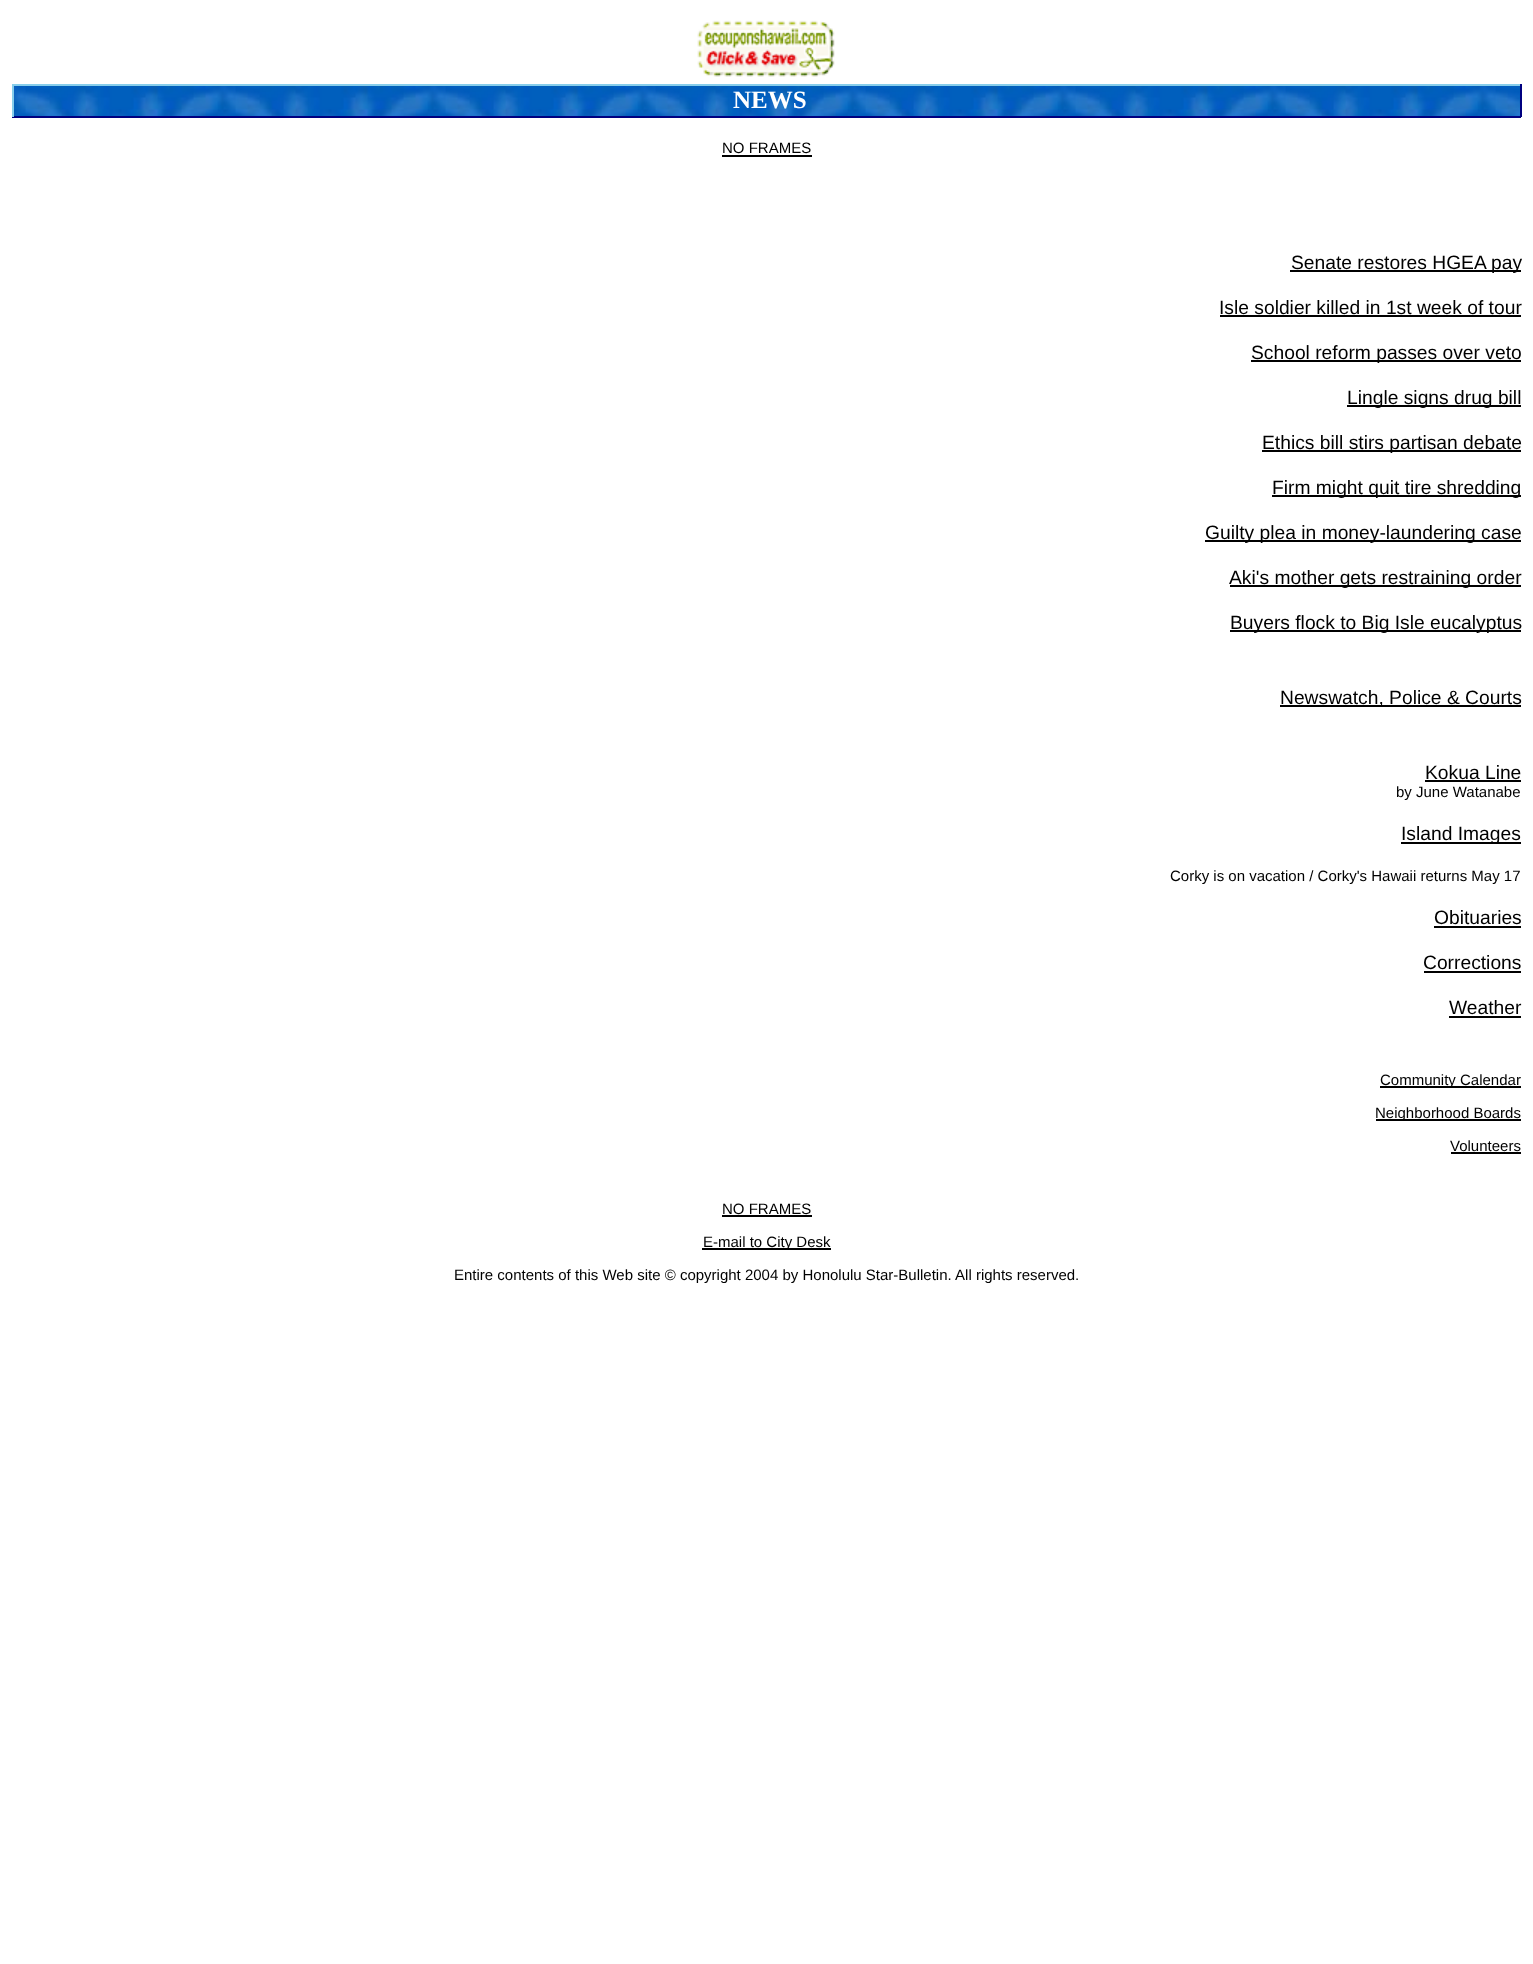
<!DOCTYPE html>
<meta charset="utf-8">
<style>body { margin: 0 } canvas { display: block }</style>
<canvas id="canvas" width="1533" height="1964"></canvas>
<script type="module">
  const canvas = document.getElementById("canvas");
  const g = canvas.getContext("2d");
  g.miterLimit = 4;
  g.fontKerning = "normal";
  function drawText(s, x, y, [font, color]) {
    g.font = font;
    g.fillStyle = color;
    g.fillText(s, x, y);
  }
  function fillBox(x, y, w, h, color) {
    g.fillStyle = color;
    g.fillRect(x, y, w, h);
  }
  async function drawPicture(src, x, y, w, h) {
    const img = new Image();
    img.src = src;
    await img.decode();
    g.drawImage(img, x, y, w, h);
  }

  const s1 = ["bold 25px Liberation Serif", "#FFFFFF"];
  const s2 = ["15px Liberation Sans", "#000000"];
  const s3 = ["19.25px Liberation Sans", "#000000"];

  fillBox(0, 0, 1533, 1964, "#FFFFFF");
  await drawPicture("pic1.png", 697, 20, 138, 57);
  await drawPicture("pic2.png", 14, 86, 1506, 30);
  fillBox(12, 84, 1509, 2, "#87CEEB");
  fillBox(1520, 84, 2, 33, "#000080");
  fillBox(12, 116, 1509, 2, "#000080");
  fillBox(12, 84, 2, 33, "#87CEEB");
  drawText("NEWS", 733, 108, s1);
  drawText("NO FRAMES", 722, 153, s2);
  fillBox(722, 155, 90, 2, "#000000");
  fillBox(1290, 270, 231, 2, "#000000");
  drawText("Senate restores HGEA pay", 1291, 269, s3);
  drawText("Isle soldier killed in 1st week of tour", 1219, 314, s3);
  fillBox(1220, 315, 301, 2, "#000000");
  fillBox(1251, 360, 270, 2, "#000000");
  drawText("School reform passes over veto", 1251, 359, s3);
  fillBox(1347, 405, 174, 2, "#000000");
  drawText("Lingle signs drug bill", 1347, 404, s3);
  fillBox(1262, 450, 259, 2, "#000000");
  drawText("Ethics bill stirs partisan debate", 1262, 449, s3);
  fillBox(1272, 495, 249, 2, "#000000");
  drawText("Firm might quit tire shredding", 1272, 494, s3);
  fillBox(1205, 540, 316, 2, "#000000");
  drawText("Guilty plea in money-laundering case", 1205, 539, s3);
  fillBox(1230, 585, 291, 2, "#000000");
  drawText("Aki's mother gets restraining order", 1229, 584, s3);
  fillBox(1230, 630, 291, 2, "#000000");
  drawText("Buyers flock to Big Isle eucalyptus", 1230, 629, s3);
  fillBox(1280, 705, 241, 2, "#000000");
  drawText("Newswatch, Police & Courts", 1280, 704, s3);
  drawText("Kokua Line", 1425, 779, s3);
  fillBox(1425, 780, 96, 2, "#000000");
  drawText("by June Watanabe", 1396, 797, s2);
  fillBox(1401, 842, 120, 2, "#000000");
  drawText("Island Images", 1401, 840, s3);
  drawText("Corky is on vacation / Corky's Hawaii returns May 17", 1170, 881, s2);
  drawText("Obituaries", 1434, 924, s3);
  fillBox(1434, 926, 87, 2, "#000000");
  drawText("Corrections", 1423, 969, s3);
  fillBox(1424, 971, 97, 2, "#000000");
  drawText("Weather", 1449, 1014, s3);
  fillBox(1449, 1016, 72, 2, "#000000");
  fillBox(1380, 1086, 141, 2, "#000000");
  drawText("Community Calendar", 1380, 1085, s2);
  fillBox(1376, 1119, 145, 2, "#000000");
  drawText("Neighborhood Boards", 1375, 1118, s2);
  drawText("Volunteers", 1450, 1151, s2);
  fillBox(1451, 1152, 70, 2, "#000000");
  drawText("NO FRAMES", 722, 1214, s2);
  fillBox(722, 1215, 90, 2, "#000000");
  fillBox(702, 1248, 129, 2, "#000000");
  drawText("E-mail to City Desk", 703, 1247, s2);
  drawText("Entire contents of this Web site © copyright 2004 by Honolulu Star-Bulletin. All rights reserved.", 454, 1280, s2);
</script>
